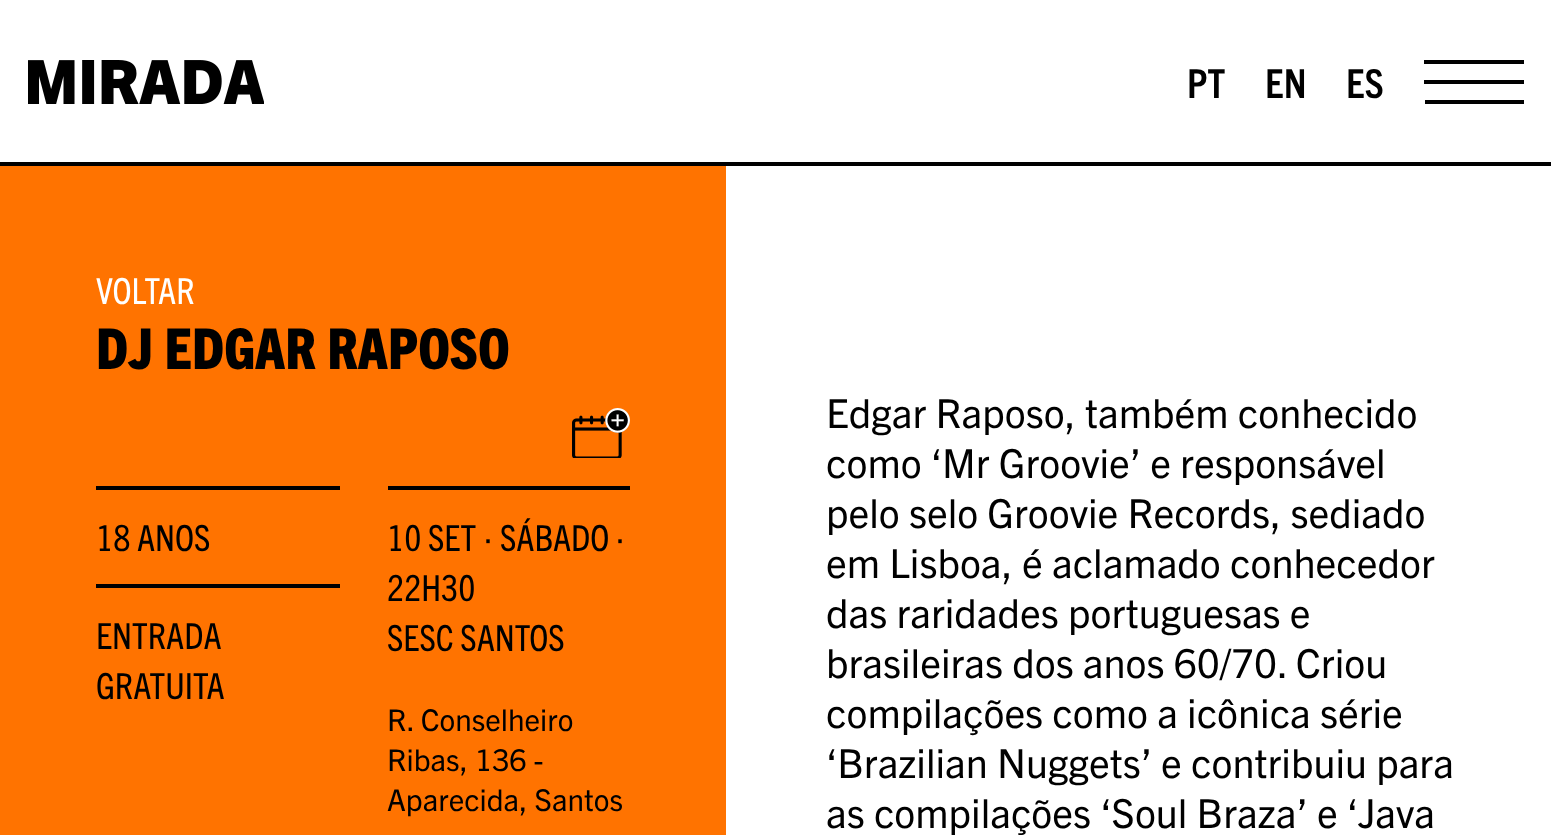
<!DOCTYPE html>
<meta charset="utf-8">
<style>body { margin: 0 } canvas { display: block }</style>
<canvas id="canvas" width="1551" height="835"></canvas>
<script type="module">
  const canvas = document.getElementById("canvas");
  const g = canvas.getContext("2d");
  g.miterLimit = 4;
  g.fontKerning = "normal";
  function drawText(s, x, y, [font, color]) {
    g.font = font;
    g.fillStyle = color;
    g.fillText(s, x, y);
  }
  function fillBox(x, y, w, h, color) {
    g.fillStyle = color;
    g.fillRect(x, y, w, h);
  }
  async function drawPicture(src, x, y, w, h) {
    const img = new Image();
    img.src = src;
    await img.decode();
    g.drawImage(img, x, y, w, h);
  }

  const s1 = ["bold 40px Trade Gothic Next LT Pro", "#000000"];
  const s2 = ["36px Trade Gothic Next LT Pro", "#FFFFFF"];
  const s3 = ["800 56.5px Trade Gothic Next LT Pro", "#000000"];
  const s4 = ["36px Trade Gothic Next LT Pro", "#000000"];
  const s5 = ["36px Liberation Sans", "#000000"];
  const s6 = ["30px 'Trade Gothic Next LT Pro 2'", "#000000"];
  const s7 = ["40px 'Trade Gothic Next LT Pro 2'", "#000000"];

  fillBox(0, 0, 1551, 835, "#FFFFFF");
  fillBox(0, 162, 1551, 4, "#000000");
  await drawPicture("pic1.png", 28, 60, 236, 44);
  drawText("PT", 1187, 98, s1);
  drawText("EN", 1265, 98, s1);
  drawText("ES", 1346, 98, s1);
  fillBox(1424, 60, 100, 4, "#000000");
  fillBox(1424, 80, 100, 4, "#000000");
  fillBox(1425, 100, 99, 4, "#000000");
  fillBox(0, 166, 726, 669, "#FF7300");
  drawText("VOLTAR", 96, 304, s2);
  drawText("DJ EDGAR RAPOSO", 96, 369, s3);
  await drawPicture("pic2.png", 572, 408, 58, 50);
  fillBox(96, 486, 244, 4, "#000000");
  drawText("18 ANOS", 96, 551, s4);
  fillBox(96, 584, 244, 4, "#000000");
  drawText("ENTRADA", 96, 649, s4);
  drawText("GRATUITA", 96, 699, s4);
  fillBox(388, 486, 242, 4, "#000000");
  drawText("10 SET", 387, 551, s4);
  drawText("∙", 483, 551, s5);
  drawText("SÁBADO", 500, 551, s4);
  drawText("∙", 615, 551, s5);
  drawText("22H30", 387, 601, s4);
  drawText("SESC SANTOS", 387, 651, s4);
  drawText("R. Conselheiro", 387, 731, s6);
  drawText("Ribas, 136 -", 387, 771, s6);
  drawText("Aparecida, Santos", 387, 811, s6);
  drawText("Edgar Raposo, também conhecido", 826, 428, s7);
  drawText("como ‘Mr Groovie’ e responsável", 826, 478, s7);
  drawText("pelo selo Groovie Records, sediado", 826, 528, s7);
  drawText("em Lisboa, é aclamado conhecedor", 826, 578, s7);
  drawText("das raridades portuguesas e", 826, 628, s7);
  drawText("brasileiras dos anos 60/70. Criou", 826, 678, s7);
  drawText("compilações como a icônica série", 826, 728, s7);
  drawText("‘Brazilian Nuggets’ e contribuiu para", 826, 778, s7);
  drawText("as compilações ‘Soul Braza’ e ‘Java", 826, 828, s7);
</script>
